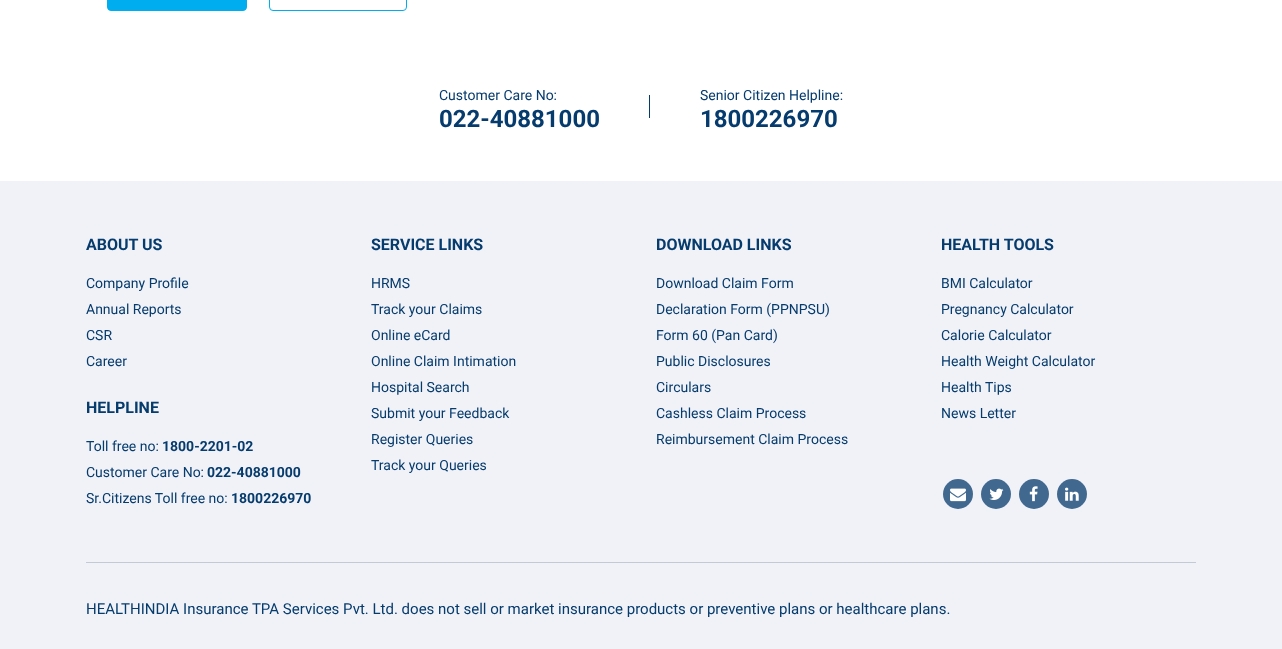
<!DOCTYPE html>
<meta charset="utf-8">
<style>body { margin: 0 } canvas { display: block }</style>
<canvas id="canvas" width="1282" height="649"></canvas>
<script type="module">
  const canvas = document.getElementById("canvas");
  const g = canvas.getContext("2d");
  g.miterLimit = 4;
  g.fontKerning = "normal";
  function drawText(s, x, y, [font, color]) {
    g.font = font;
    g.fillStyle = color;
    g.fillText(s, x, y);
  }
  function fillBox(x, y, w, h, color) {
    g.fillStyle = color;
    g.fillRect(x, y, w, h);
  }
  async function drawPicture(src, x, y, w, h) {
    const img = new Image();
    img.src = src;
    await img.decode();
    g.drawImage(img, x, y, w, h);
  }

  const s1 = ["14px Roboto", "#063B6D"];
  const s2 = ["bold 24px Roboto", "#063B6D"];
  const s3 = ["bold 16px Roboto", "#063B6D"];
  const s4 = ["bold 14px Roboto", "#063B6D"];
  const s5 = ["15px Roboto", "#063B6D"];

  fillBox(0, 0, 1282, 649, "#FFFFFF");
  g.fillStyle = "#00AEEF";
  g.beginPath();
  g.roundRect(107.5, -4.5, 139, 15, 3.5);
  g.fill();
  g.strokeStyle = "#00AEEF";
  g.stroke();
  g.beginPath();
  g.roundRect(269.5, -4.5, 137, 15, 3.5);
  g.stroke();
  drawText("Customer Care No:", 439, 100, s1);
  fillBox(649, 95, 1, 23, "#063B6D");
  drawText("022-40881000", 439, 127, s2);
  drawText("Senior Citizen Helpline:", 700, 100, s1);
  drawText("1800226970", 700, 127, s2);
  fillBox(0, 181, 1282, 468, "#F0F2F7");
  drawText("ABOUT US", 86, 250, s3);
  drawText("Company Profile", 86, 288, s1);
  drawText("Annual Reports", 86, 314, s1);
  drawText("CSR", 86, 340, s1);
  drawText("Career", 86, 366, s1);
  drawText("HELPLINE", 86, 413, s3);
  drawText("Toll free no:", 86, 451, s1);
  drawText("1800-2201-02", 162, 451, s4);
  drawText("Customer Care No:", 86, 477, s1);
  drawText("022-40881000", 207, 477, s4);
  drawText("Sr.Citizens Toll free no:", 86, 503, s1);
  drawText("1800226970", 231, 503, s4);
  drawText("SERVICE LINKS", 371, 250, s3);
  drawText("HRMS", 371, 288, s1);
  drawText("Track your Claims", 371, 314, s1);
  drawText("Online eCard", 371, 340, s1);
  drawText("Online Claim Intimation", 371, 366, s1);
  drawText("Hospital Search", 371, 392, s1);
  drawText("Submit your Feedback", 371, 418, s1);
  drawText("Register Queries", 371, 444, s1);
  drawText("Track your Queries", 371, 470, s1);
  drawText("DOWNLOAD LINKS", 656, 250, s3);
  drawText("Download Claim Form", 656, 288, s1);
  drawText("Declaration Form (PPNPSU)", 656, 314, s1);
  drawText("Form 60 (Pan Card)", 656, 340, s1);
  drawText("Public Disclosures", 656, 366, s1);
  drawText("Circulars", 656, 392, s1);
  drawText("Cashless Claim Process", 656, 418, s1);
  drawText("Reimbursement Claim Process", 656, 444, s1);
  drawText("HEALTH TOOLS", 941, 250, s3);
  drawText("BMI Calculator", 941, 288, s1);
  drawText("Pregnancy Calculator", 941, 314, s1);
  drawText("Calorie Calculator", 941, 340, s1);
  drawText("Health Weight Calculator", 941, 366, s1);
  drawText("Health Tips", 941, 392, s1);
  drawText("News Letter", 941, 418, s1);
  g.fillStyle = "#416990";
  g.beginPath();
  g.arc(958, 494, 15, 0, Math.PI * 2);
  g.fill();
  await drawPicture("pic1.png", 950, 488, 16, 14);
  g.beginPath();
  g.arc(996, 494, 15, 0, Math.PI * 2);
  g.fill();
  await drawPicture("pic2.png", 989, 488, 15, 12);
  g.beginPath();
  g.arc(1034, 494, 15, 0, Math.PI * 2);
  g.fill();
  await drawPicture("pic3.png", 1029, 486, 9, 16);
  g.beginPath();
  g.arc(1072, 494, 15, 0, Math.PI * 2);
  g.fill();
  await drawPicture("pic4.png", 1065, 487, 14, 14);
  fillBox(86, 562, 1110, 1, "#C2CAD4");
  drawText("HEALTHINDIA Insurance TPA Services Pvt. Ltd. does not sell or market insurance products or preventive plans or healthcare plans.", 86, 614, s5);
</script>
